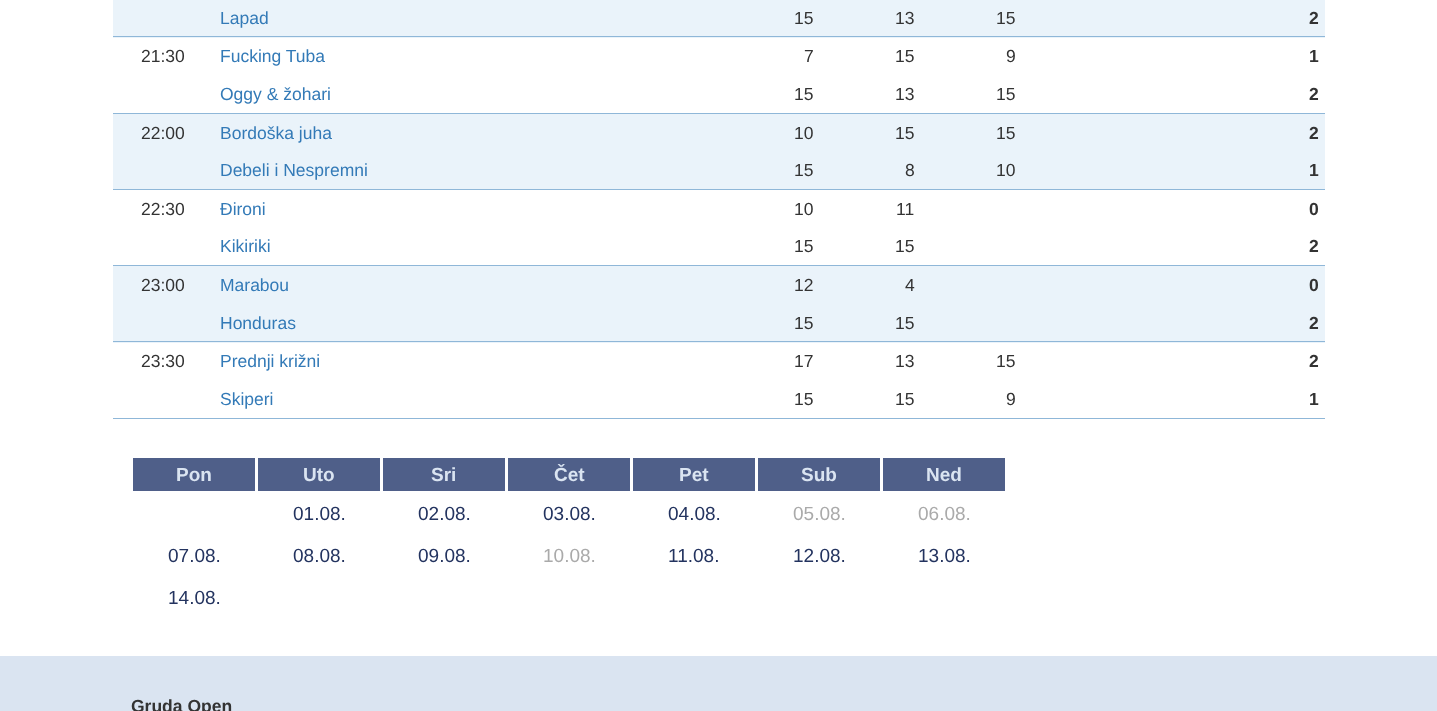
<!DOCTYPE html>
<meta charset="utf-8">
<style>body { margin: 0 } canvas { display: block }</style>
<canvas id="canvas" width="1437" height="711"></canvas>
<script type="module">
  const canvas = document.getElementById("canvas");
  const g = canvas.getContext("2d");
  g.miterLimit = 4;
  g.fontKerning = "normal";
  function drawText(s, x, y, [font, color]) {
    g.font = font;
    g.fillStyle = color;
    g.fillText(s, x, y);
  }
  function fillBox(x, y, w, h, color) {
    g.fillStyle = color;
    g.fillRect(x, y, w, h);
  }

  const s1 = ["17.5px Liberation Sans", "#337AB7"];
  const s2 = ["17.5px Liberation Sans", "#333333"];
  const s3 = ["bold 17.5px Liberation Sans", "#333333"];
  const s4 = ["bold 19px Liberation Sans", "#DAE4F1"];
  const s5 = ["19px Liberation Sans", "#23335F"];
  const s6 = ["19px Liberation Sans", "#AAAAAA"];

  fillBox(0, 0, 1437, 711, "#FFFFFF");
  fillBox(113, 0, 1212, 38, "#EAF3FA");
  fillBox(113, 36, 1212, 1, "#8FB7D8");
  drawText("Lapad", 220, 24, s1);
  drawText("15", 794, 24, s2);
  drawText("13", 895, 24, s2);
  drawText("15", 996, 24, s2);
  drawText("2", 1309, 24, s3);
  drawText("21:30", 141, 62, s2);
  drawText("Fucking Tuba", 220, 62, s1);
  drawText("7", 804, 62, s2);
  drawText("15", 895, 62, s2);
  drawText("9", 1006, 62, s2);
  drawText("1", 1309, 62, s3);
  fillBox(113, 113, 1212, 1, "#8FB7D8");
  drawText("Oggy & žohari", 220, 100, s1);
  drawText("15", 794, 100, s2);
  drawText("13", 895, 100, s2);
  drawText("15", 996, 100, s2);
  drawText("2", 1309, 100, s3);
  fillBox(113, 114, 1212, 75, "#EAF3FA");
  drawText("22:00", 141, 139, s2);
  drawText("Bordoška juha", 220, 139, s1);
  drawText("10", 794, 139, s2);
  drawText("15", 895, 139, s2);
  drawText("15", 996, 139, s2);
  drawText("2", 1309, 139, s3);
  fillBox(113, 189, 1212, 1, "#8FB7D8");
  drawText("Debeli i Nespremni", 220, 176, s1);
  drawText("15", 794, 176, s2);
  drawText("8", 905, 176, s2);
  drawText("10", 996, 176, s2);
  drawText("1", 1309, 176, s3);
  drawText("22:30", 141, 215, s2);
  drawText("Đironi", 220, 215, s1);
  drawText("10", 794, 215, s2);
  drawText("11", 896, 215, s2);
  drawText("0", 1309, 215, s3);
  fillBox(113, 265, 1212, 1, "#8FB7D8");
  drawText("Kikiriki", 220, 252, s1);
  drawText("15", 794, 252, s2);
  drawText("15", 895, 252, s2);
  drawText("2", 1309, 252, s3);
  fillBox(113, 266, 1212, 77, "#EAF3FA");
  drawText("23:00", 141, 291, s2);
  drawText("Marabou", 220, 291, s1);
  drawText("12", 794, 291, s2);
  drawText("4", 905, 291, s2);
  drawText("0", 1309, 291, s3);
  fillBox(113, 341, 1212, 1, "#8FB7D8");
  drawText("Honduras", 220, 329, s1);
  drawText("15", 794, 329, s2);
  drawText("15", 895, 329, s2);
  drawText("2", 1309, 329, s3);
  drawText("23:30", 141, 367, s2);
  drawText("Prednji križni", 220, 367, s1);
  drawText("17", 794, 367, s2);
  drawText("13", 895, 367, s2);
  drawText("15", 996, 367, s2);
  drawText("2", 1309, 367, s3);
  fillBox(113, 418, 1212, 1, "#8FB7D8");
  drawText("Skiperi", 220, 405, s1);
  drawText("15", 794, 405, s2);
  drawText("15", 895, 405, s2);
  drawText("9", 1006, 405, s2);
  drawText("1", 1309, 405, s3);
  fillBox(133, 458, 122, 33, "#4F5F89");
  drawText("Pon", 176, 481, s4);
  fillBox(258, 458, 122, 33, "#4F5F89");
  drawText("Uto", 303, 481, s4);
  fillBox(383, 458, 122, 33, "#4F5F89");
  drawText("Sri", 431, 481, s4);
  fillBox(508, 458, 122, 33, "#4F5F89");
  drawText("Čet", 554, 481, s4);
  fillBox(633, 458, 122, 33, "#4F5F89");
  drawText("Pet", 679, 481, s4);
  fillBox(758, 458, 122, 33, "#4F5F89");
  drawText("Sub", 801, 481, s4);
  fillBox(883, 458, 122, 33, "#4F5F89");
  drawText("Ned", 926, 481, s4);
  drawText("01.08.", 293, 520, s5);
  drawText("02.08.", 418, 520, s5);
  drawText("03.08.", 543, 520, s5);
  drawText("04.08.", 668, 520, s5);
  drawText("05.08.", 793, 520, s6);
  drawText("06.08.", 918, 520, s6);
  drawText("07.08.", 168, 562, s5);
  drawText("08.08.", 293, 562, s5);
  drawText("09.08.", 418, 562, s5);
  drawText("10.08.", 543, 562, s6);
  drawText("11.08.", 668, 562, s5);
  drawText("12.08.", 793, 562, s5);
  drawText("13.08.", 918, 562, s5);
  drawText("14.08.", 168, 604, s5);
  fillBox(0, 656, 1437, 55, "#DAE4F1");
  drawText("Gruda Open", 131, 712, s3);
</script>
